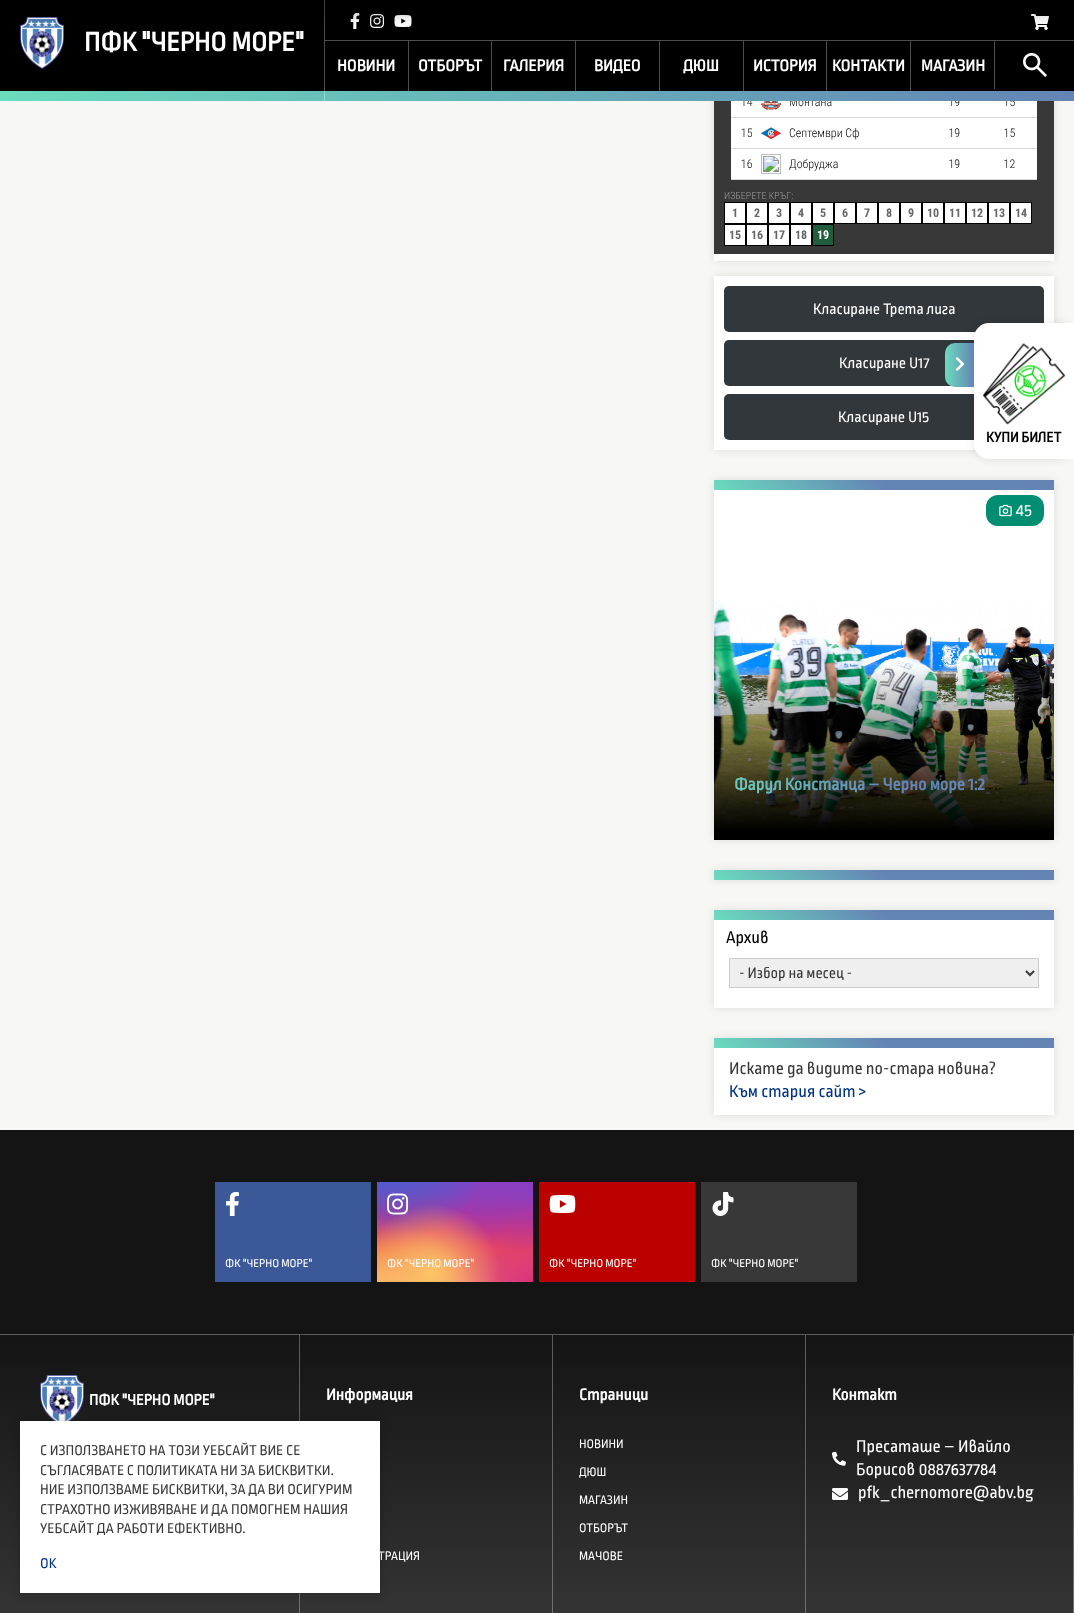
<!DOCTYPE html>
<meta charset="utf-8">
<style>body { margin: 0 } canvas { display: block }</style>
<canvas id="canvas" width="1074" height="1613"></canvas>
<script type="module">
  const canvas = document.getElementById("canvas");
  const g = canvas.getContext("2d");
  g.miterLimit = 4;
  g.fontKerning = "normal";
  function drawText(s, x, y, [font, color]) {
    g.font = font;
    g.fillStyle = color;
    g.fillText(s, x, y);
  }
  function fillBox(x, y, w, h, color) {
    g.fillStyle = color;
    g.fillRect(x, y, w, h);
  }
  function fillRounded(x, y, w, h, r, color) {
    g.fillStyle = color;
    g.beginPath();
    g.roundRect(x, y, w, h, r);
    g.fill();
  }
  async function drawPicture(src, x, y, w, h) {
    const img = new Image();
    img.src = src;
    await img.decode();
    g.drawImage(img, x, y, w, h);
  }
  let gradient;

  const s1 = ["bold 28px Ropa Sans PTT", "#FFFFFF"];
  const s2 = ["bold 17px Ropa Sans PTT", "#FFFFFF"];
  const s3 = ["16px Ropa Sans PTT", "#FFFFFF"];
  const s4 = ["18px Ropa Sans PTT", "#FFFFFF"];
  const s5 = ["18px Ropa Sans PTT", "#000000"];
  const s6 = ["16px Ropa Sans PTT", "#3A3A3A"];
  const s7 = ["18px Ropa Sans PTT", "#3A3A3A"];
  const s8 = ["18px Ropa Sans PTT", "#003585"];
  const s9 = ["12px Ropa Sans PTT", "#FFFFFF"];
  const s10 = ["bold 16px Ropa Sans PTT", "#FFFFFF"];
  const s11 = ["13px Ropa Sans PTT", "#FFFFFF"];
  const s12 = ["15px Ropa Sans PTT", "#3A3A3A"];
  const s13 = ["15px Ropa Sans PTT", "#003585"];
  const s14 = ["bold 15px Ropa Sans PTT", "#000000"];

  fillBox(0, 0, 1074, 1613, "#F7F7F5");
  g.fillStyle = "rgba(0, 0, 0, 0.1)";
  g.filter = "blur(5px)";
  g.beginPath();
  g.rect(714, -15, 340, 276);
  g.fill();
  g.filter = "none";
  fillBox(0, 0, 1074, 91, "#000000");
  fillBox(324, 0, 1, 91, "#4D4D4D");
  await drawPicture("pic1.png", 20, 17, 44, 52);
  await drawPicture("pic2.png", 350, 13, 10, 16);
  await drawPicture("pic3.png", 370, 14, 15, 14);
  await drawPicture("pic4.png", 394, 15, 18, 12);
  await drawPicture("pic5.png", 1031, 14, 18, 16);
  g.fillStyle = "rgba(0, 0, 0, 0.2)";
  g.filter = "blur(7.5px)";
  g.beginPath();
  g.rect(0, -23, 1074, 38);
  g.fill();
  g.filter = "none";
  drawText("ПФК \"ЧЕРНО МОРЕ\"", 84, 51, s1);
  fillBox(325, 40, 749, 1, "#4D4D4D");
  drawText("НОВИНИ", 337, 71, s2);
  fillBox(408, 41, 1, 50, "#4D4D4D");
  drawText("ОТБОРЪТ", 418, 71, s2);
  fillBox(491, 41, 1, 50, "#4D4D4D");
  drawText("ГАЛЕРИЯ", 503, 71, s2);
  fillBox(575, 41, 1, 50, "#4D4D4D");
  drawText("ВИДЕО", 594, 71, s2);
  fillBox(659, 41, 1, 50, "#4D4D4D");
  drawText("ДЮШ", 683, 71, s2);
  fillBox(743, 41, 1, 50, "#4D4D4D");
  drawText("ИСТОРИЯ", 753, 71, s2);
  fillBox(826, 41, 1, 50, "#4D4D4D");
  drawText("КОНТАКТИ", 832, 71, s2);
  fillBox(910, 41, 1, 50, "#4D4D4D");
  drawText("МАГАЗИН", 921, 71, s2);
  fillBox(994, 41, 1, 48, "#4D4D4D");
  await drawPicture("pic6.png", 1023, 53, 24, 24);
  gradient = g.createLinearGradient(0, 96, 1074, 96);
  gradient.addColorStop(0, "#6BDBBD");
  gradient.addColorStop(1, "#6484B5");
  g.fillStyle = gradient;
  g.fillRect(0, 91, 1074, 10);
  gradient = g.createLinearGradient(0, 96, 1074, 96);
  gradient.addColorStop(0, "#97E6D1");
  gradient.addColorStop(1, "#93A9CB");
  g.fillStyle = gradient;
  g.fillRect(324, 91, 1, 10);
  fillBox(324, 101, 1, 3, "#F9F9F8");
  fillBox(714, 254, 340, 7, "#FFFFFF");
  await drawPicture("pic7.png", 714, 101, 340, 153);
  g.fillStyle = "rgba(0, 0, 0, 0.1)";
  g.filter = "blur(5px)";
  g.beginPath();
  g.rect(714, 276, 340, 174);
  g.fill();
  g.filter = "none";
  fillBox(714, 276, 340, 174, "#FFFFFF");
  fillRounded(724, 286, 320, 46, 5, "#32373C");
  drawText("Класиране Трета лига", 813, 314, s3);
  fillRounded(724, 340, 320, 46, 5, "#32373C");
  drawText("Класиране U17", 839, 368, s3);
  fillRounded(724, 394, 320, 46, 5, "#32373C");
  drawText("Класиране U15", 838, 422, s3);
  g.fillStyle = "rgba(0, 0, 0, 0.1)";
  g.filter = "blur(5px)";
  g.beginPath();
  g.rect(714, 480, 340, 360);
  g.fill();
  g.filter = "none";
  fillBox(714, 490, 340, 111, "#FFFFFF");
  gradient = g.createLinearGradient(797, 573, 972, 398);
  gradient.addColorStop(0, "#6BDBBD");
  gradient.addColorStop(0.5, "#6484B5");
  g.fillStyle = gradient;
  g.fillRect(714, 480, 340, 10);
  fillRounded(986, 495, 58, 31, 12, "#008E72");
  await drawPicture("pic8.png", 999, 504, 13, 13);
  drawText("45", 1016, 516, s4);
  await drawPicture("pic9.png", 714, 601, 340, 239);
  g.font = "bold 18px Ropa Sans PTT";
  gradient = g.createLinearGradient(789, 876, 979, 686);
  gradient.addColorStop(0, "#6BDBBD");
  gradient.addColorStop(0.5, "#6484B5");
  g.fillStyle = gradient;
  g.fillText("Фарул Констанца – Черно море 1:2", 734, 790);
  g.fillStyle = "rgba(0, 0, 0, 0.1)";
  g.filter = "blur(5px)";
  g.beginPath();
  g.rect(714, 870, 340, 10);
  g.fill();
  g.filter = "none";
  gradient = g.createLinearGradient(797, 963, 972, 788);
  gradient.addColorStop(0, "#6BDBBD");
  gradient.addColorStop(0.5, "#6484B5");
  g.fillStyle = gradient;
  g.fillRect(714, 870, 340, 10);
  g.fillStyle = "rgba(0, 0, 0, 0.1)";
  g.filter = "blur(5px)";
  g.beginPath();
  g.rect(714, 910, 340, 98);
  g.fill();
  g.filter = "none";
  fillBox(714, 920, 340, 88, "#FFFFFF");
  gradient = g.createLinearGradient(797, 1003, 972, 828);
  gradient.addColorStop(0, "#6BDBBD");
  gradient.addColorStop(0.5, "#6484B5");
  g.fillStyle = gradient;
  g.fillRect(714, 910, 340, 10);
  drawText("Архив", 726, 943, s5);
  g.fillStyle = "#EFEFEF";
  g.beginPath();
  g.rect(729.5, 958.5, 309, 29);
  g.fill();
  g.strokeStyle = "#CCCCCC";
  g.stroke();
  g.beginPath();
  g.moveTo(1026, 971);
  g.lineTo(1030, 975);
  g.lineTo(1034, 971);
  g.strokeStyle = "#3A3A3A";
  g.lineWidth = 2;
  g.stroke();
  drawText("- Избор на месец -", 739, 978, s6);
  fillBox(0, 1130, 1074, 204, "#141414");
  g.fillStyle = "rgba(0, 0, 0, 0.1)";
  g.filter = "blur(5px)";
  g.beginPath();
  g.rect(714, 1038, 340, 77);
  g.fill();
  g.filter = "none";
  fillBox(714, 1048, 340, 67, "#FFFFFF");
  gradient = g.createLinearGradient(797, 1131, 972, 956);
  gradient.addColorStop(0, "#6BDBBD");
  gradient.addColorStop(0.5, "#6484B5");
  g.fillStyle = gradient;
  g.fillRect(714, 1038, 340, 10);
  drawText("Искате да видите по-стара новина?", 729, 1074, s7);
  drawText("Към стария сайт >", 729, 1097, s8);
  fillBox(0, 1334, 1074, 1, "#5B5B5B");
  fillBox(215, 1182, 156, 100, "#3B5998");
  await drawPicture("pic10.png", 226, 1192, 13, 24);
  drawText("ФК \"ЧЕРНО МОРЕ\"", 225, 1267, s9);
  gradient = g.createLinearGradient(455, 1182, 455, 1282);
  gradient.addColorStop(0, "#6559CA");
  gradient.addColorStop(0.3, "#BC318F");
  gradient.addColorStop(0.5, "#E33F5F");
  gradient.addColorStop(0.7, "#F77638");
  gradient.addColorStop(1, "#FEC66D");
  g.fillStyle = gradient;
  g.fillRect(377, 1182, 156, 100);
  gradient = g.createRadialGradient(533, 2009.38, 0, 533, 2009.38, 221);
  gradient.addColorStop(0, "#D9317A");
  gradient.addColorStop(1, "rgba(217, 49, 122, 0)");
  g.fillStyle = gradient;
  g.beginPath();
  g.rect(377, 1182, 156, 100);
  g.save();
  g.clip();
  g.scale(1, 141 / 221);
  g.fillRect(0, 0, 1074, 2529);
  g.restore();
  gradient = g.createRadialGradient(471, 902.26, 0, 471, 902.26, 132);
  gradient.addColorStop(0, "#893DC2");
  gradient.addColorStop(0.5, "rgba(137, 61, 194, 0)");
  g.fillStyle = gradient;
  g.beginPath();
  g.rect(415, 1182, 114, 63);
  g.save();
  g.clip();
  g.scale(1, 170 / 132);
  g.fillRect(0, 0, 1074, 1253);
  g.restore();
  gradient = g.createRadialGradient(533, 1852.64, 0, 533, 1852.64, 221);
  gradient.addColorStop(0, "#893DC2");
  gradient.addColorStop(0.5, "rgba(137, 61, 194, 0)");
  g.fillStyle = gradient;
  g.beginPath();
  g.rect(435, 1182, 98, 68);
  g.save();
  g.clip();
  g.scale(1, 141 / 221);
  g.fillRect(0, 0, 1074, 2529);
  g.restore();
  gradient = g.createRadialGradient(408, 939.77, 0, 408, 939.77, 176);
  gradient.addColorStop(0, "#5258CF");
  gradient.addColorStop(0.5, "rgba(82, 88, 207, 0)");
  g.fillStyle = gradient;
  g.beginPath();
  g.rect(377, 1182, 103, 54);
  g.save();
  g.clip();
  g.scale(1, 212 / 176);
  g.fillRect(0, 0, 1074, 1340);
  g.restore();
  gradient = g.createRadialGradient(377, 1444.62, 0, 377, 1444.62, 221);
  gradient.addColorStop(0, "#5258CF");
  gradient.addColorStop(0.5, "rgba(82, 88, 207, 0)");
  g.fillStyle = gradient;
  g.beginPath();
  g.rect(377, 1182, 101, 62);
  g.save();
  g.clip();
  g.scale(1, 177 / 221);
  g.fillRect(0, 0, 1074, 2014);
  g.restore();
  gradient = g.createRadialGradient(377, 1322, 0, 377, 1322, 210);
  gradient.addColorStop(0, "#FEC564");
  gradient.addColorStop(0.5, "rgba(254, 197, 100, 0)");
  g.fillStyle = gradient;
  g.fillRect(377, 1219, 94, 63);
  gradient = g.createRadialGradient(432, 1272, 0, 432, 1272, 136);
  gradient.addColorStop(0, "#FEC564");
  gradient.addColorStop(0.5, "rgba(254, 197, 100, 0)");
  g.fillStyle = gradient;
  g.fillRect(377, 1205, 122, 77);
  await drawPicture("pic11.png", 387, 1193, 22, 22);
  drawText("ФК \"ЧЕРНО МОРЕ\"", 387, 1267, s9);
  fillBox(539, 1182, 156, 100, "#BB0000");
  await drawPicture("pic12.png", 549, 1195, 27, 18);
  drawText("ФК \"ЧЕРНО МОРЕ\"", 549, 1267, s9);
  fillBox(701, 1182, 156, 100, "#383838");
  await drawPicture("pic13.png", 712, 1192, 22, 24);
  drawText("ФК \"ЧЕРНО МОРЕ\"", 711, 1267, s9);
  gradient = g.createLinearGradient(537, 1335, 537, 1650);
  gradient.addColorStop(0, "#141414");
  gradient.addColorStop(1, "#383838");
  g.fillStyle = gradient;
  g.fillRect(0, 1335, 1073, 278);
  gradient = g.createLinearGradient(537, 1335, 537, 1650);
  gradient.addColorStop(0, "#5B5B5B");
  gradient.addColorStop(1, "#747474");
  g.fillStyle = gradient;
  g.fillRect(1073, 1335, 1, 278);
  g.fillRect(805, 1335, 1, 278);
  g.fillRect(552, 1335, 1, 278);
  g.fillRect(299, 1335, 1, 278);
  await drawPicture("pic14.png", 40, 1375, 44, 46);
  drawText("ПФК \"ЧЕРНО МОРЕ\"", 89, 1405, s10);
  drawText("Информация", 326, 1400, s2);
  drawText("ТРАЦИЯ", 378, 1560, s11);
  drawText("Страници", 579, 1400, s2);
  drawText("НОВИНИ", 579, 1448, s11);
  drawText("ДЮШ", 579, 1476, s11);
  drawText("МАГАЗИН", 579, 1504, s11);
  drawText("ОТБОРЪТ", 579, 1532, s11);
  drawText("MAЧОВE", 579, 1560, s11);
  drawText("Контакт", 832, 1400, s2);
  await drawPicture("pic15.png", 832, 1451, 14, 15);
  drawText("Пресаташе – Ивайло", 856, 1452, s4);
  drawText("Борисов 0887637784", 856, 1475, s4);
  await drawPicture("pic16.png", 832, 1488, 16, 12);
  drawText("pfk_chernomore@abv.bg", 858, 1498, s4);
  g.fillStyle = "rgba(0, 0, 0, 0.2)";
  g.filter = "blur(4px)";
  g.beginPath();
  g.rect(20, 1421, 360, 172);
  g.fill();
  g.filter = "none";
  fillBox(20, 1421, 360, 172, "#FFFFFF");
  drawText("С ИЗПОЛЗВАНЕТО НА ТОЗИ УЕБСАЙТ ВИЕ СЕ", 40, 1455, s12);
  drawText("СЪГЛАСЯВАТЕ С ПОЛИТИКАТА НИ ЗА БИСКВИТКИ.", 40, 1475, s12);
  drawText("НИЕ ИЗПОЛЗВАМЕ БИСКВИТКИ, ЗА ДА ВИ ОСИГУРИМ", 40, 1494, s12);
  drawText("СТРАХОТНО ИЗЖИВЯВАНЕ И ДА ПОМОГНЕМ НАШИЯ", 40, 1514, s12);
  drawText("УЕБСАЙТ ДА РАБОТИ ЕФЕКТИВНО.", 40, 1533, s12);
  drawText("OK", 40, 1568, s13);
  g.fillStyle = "rgba(0, 0, 0, 0.1)";
  g.filter = "blur(5px)";
  g.beginPath();
  g.roundRect(974, 323, 100, 136, 15);
  g.fill();
  g.filter = "none";
  g.fillStyle = "#FFFFFF";
  g.beginPath();
  g.roundRect(974, 323, 100, 136, [15, 0, 0, 15]);
  g.fill();
  gradient = g.createLinearGradient(945, 365, 974, 365);
  gradient.addColorStop(0, "#6BDBBD");
  gradient.addColorStop(1, "#6484B5");
  g.fillStyle = gradient;
  g.beginPath();
  g.roundRect(945, 343, 29, 44, [10, 0, 0, 10]);
  g.fill();
  await drawPicture("pic17.png", 955, 357, 10, 14);
  await drawPicture("pic18.png", 982, 343, 84, 82);
  drawText("КУПИ БИЛЕТ", 986, 442, s14);
</script>
